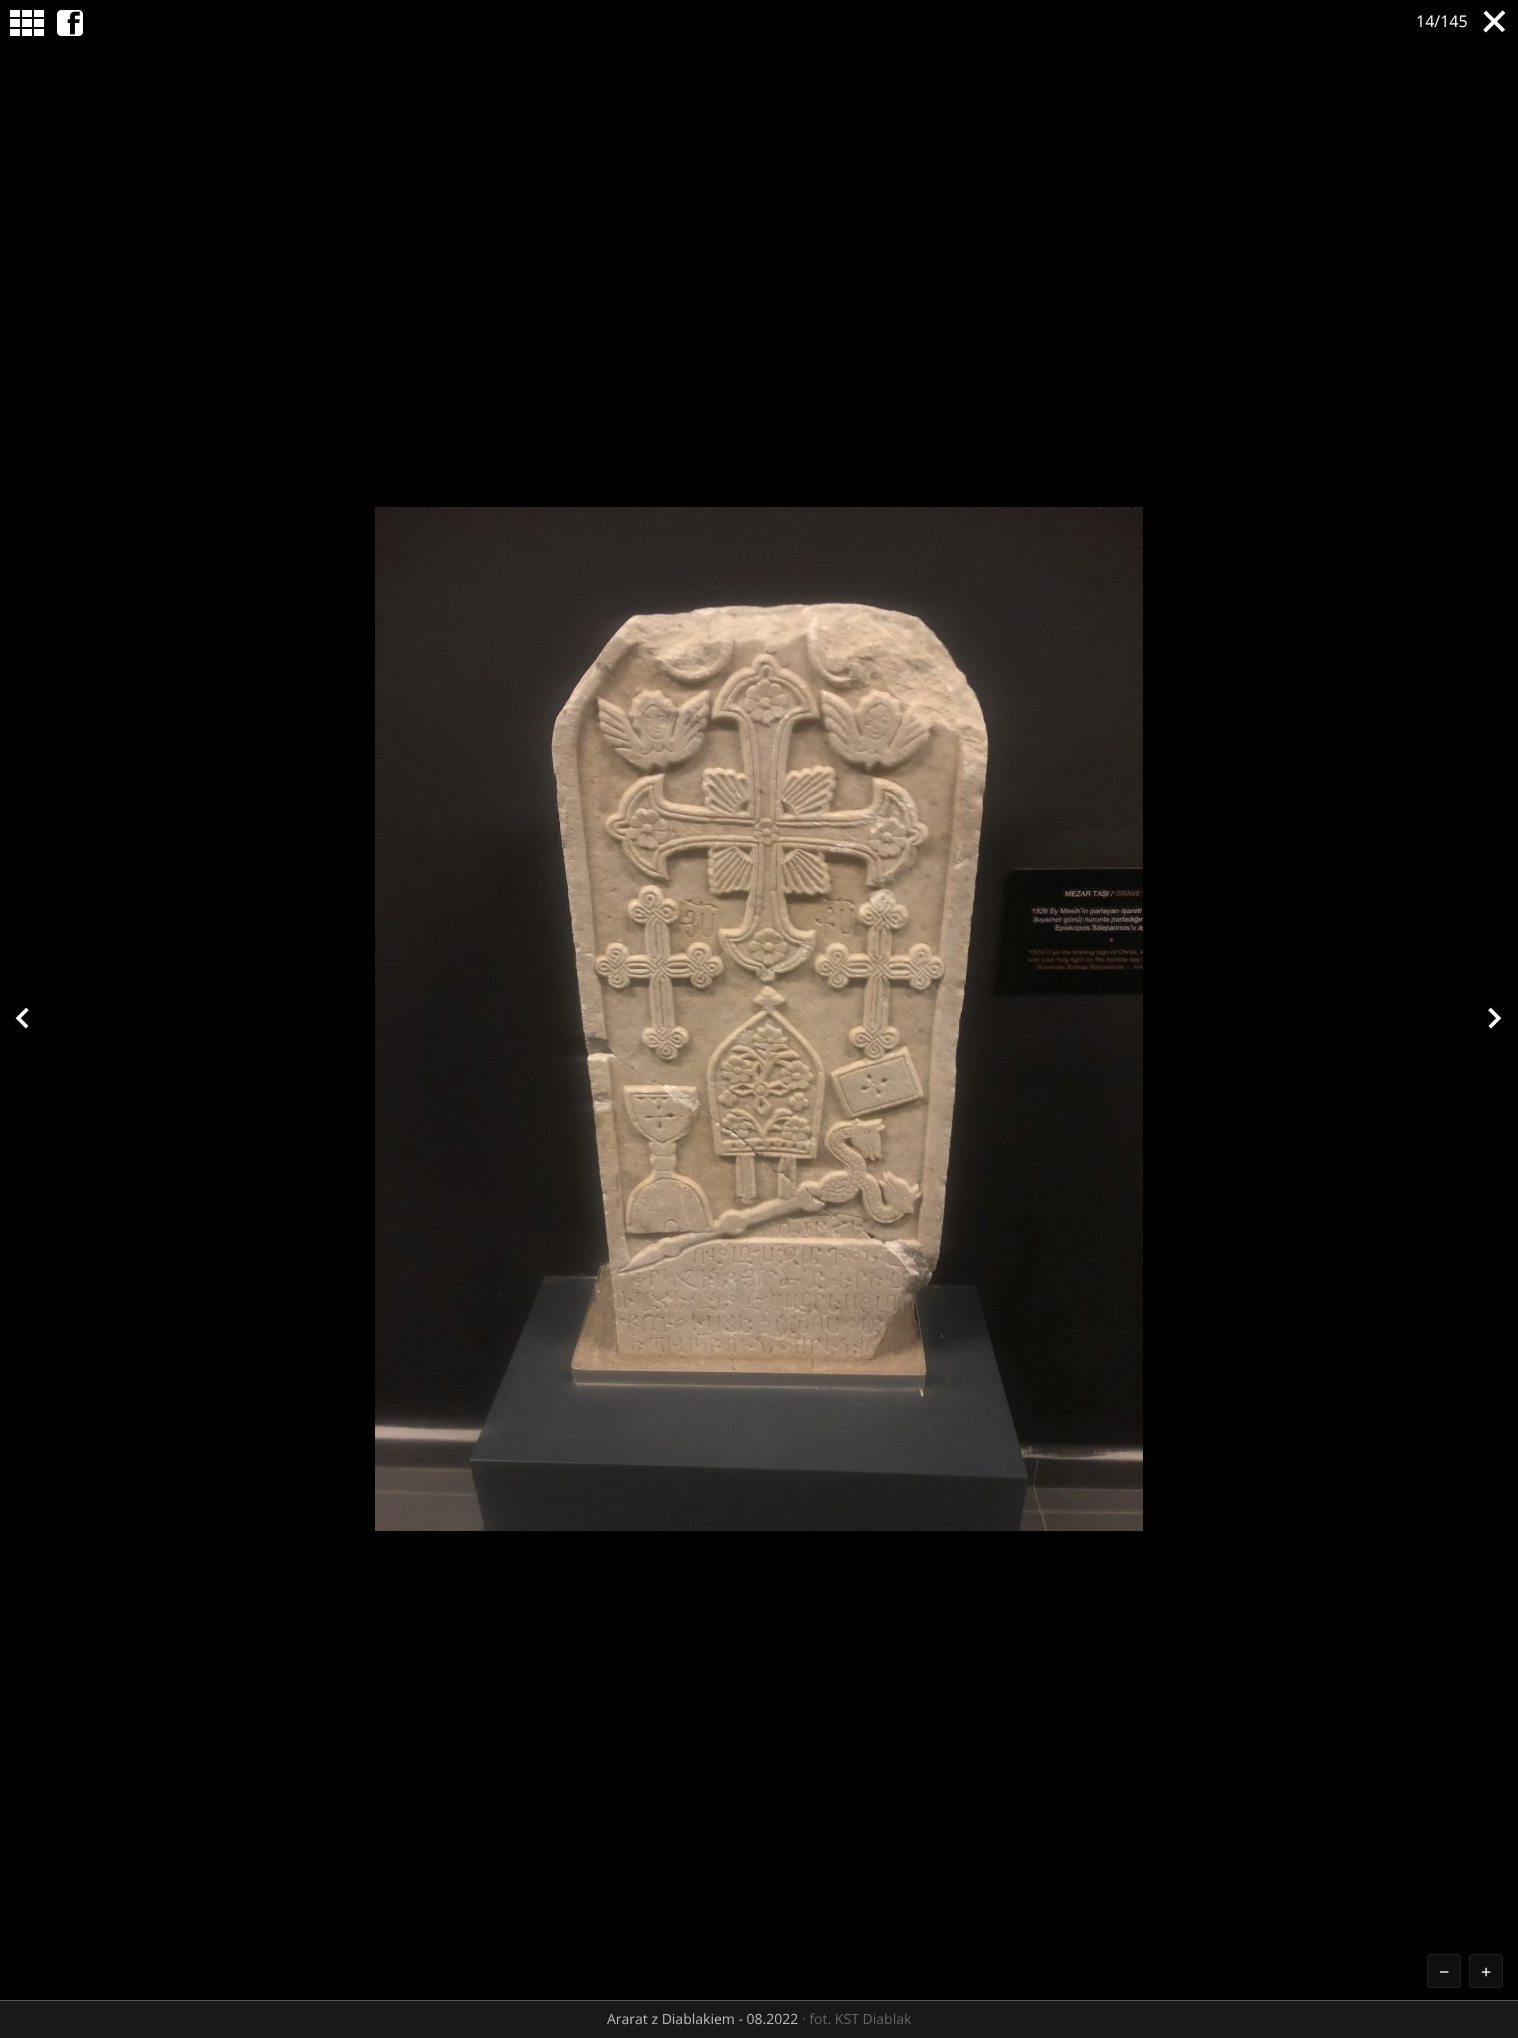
<!DOCTYPE html>
<meta charset="utf-8">
<style>body { margin: 0 } canvas { display: block }</style>
<canvas id="canvas" width="1518" height="2038"></canvas>
<script type="module">
  const canvas = document.getElementById("canvas");
  const g = canvas.getContext("2d");
  g.miterLimit = 4;
  g.fontKerning = "normal";
  function drawText(s, x, y, [font, color]) {
    g.font = font;
    g.fillStyle = color;
    g.fillText(s, x, y);
  }
  function fillBox(x, y, w, h, color) {
    g.fillStyle = color;
    g.fillRect(x, y, w, h);
  }
  function fillRounded(x, y, w, h, r, color) {
    g.fillStyle = color;
    g.beginPath();
    g.roundRect(x, y, w, h, r);
    g.fill();
  }
  async function drawPicture(src, x, y, w, h) {
    const img = new Image();
    img.src = src;
    await img.decode();
    g.drawImage(img, x, y, w, h);
  }

  const s1 = ["16px Open Sans", "#FFFFFF"];
  const s2 = ["bold 18px Liberation Serif", "#FFFFFF"];
  const s3 = ["14px Open Sans", "#BCBCBC"];
  const s4 = ["14px Open Sans", "#666666"];

  fillBox(0, 0, 1518, 2038, "#000000");
  drawText("14/145", 1416, 27, s1);
  await drawPicture("pic1.png", 1483, 10, 23, 23);
  await drawPicture("pic2.png", 15, 1007, 14, 22);
  await drawPicture("pic3.png", 375, 507, 768, 1024);
  await drawPicture("pic4.png", 1488, 1007, 14, 22);
  await drawPicture("pic5.png", 10, 10, 35, 26);
  await drawPicture("pic6.png", 57, 10, 26, 26);
  fillRounded(1427, 1954, 34, 34, 4, "#0F0F0F");
  g.beginPath();
  g.roundRect(1427.5, 1954.5, 33, 33, 3.5);
  g.strokeStyle = "rgba(255, 255, 255, 0.08)";
  g.stroke();
  drawText("−", 1439, 1978, s2);
  fillRounded(1469, 1954, 34, 34, 4, "#0F0F0F");
  g.beginPath();
  g.roundRect(1469.5, 1954.5, 33, 33, 3.5);
  g.stroke();
  drawText("+", 1481, 1978, s2);
  fillBox(0, 2001, 1518, 37, "#191919");
  fillBox(0, 2000, 1518, 1, "#555555");
  drawText("Ararat z Diablakiem - 08.2022", 607, 2024, s3);
  drawText("· fot. KST Diablak", 802, 2024, s4);
</script>
